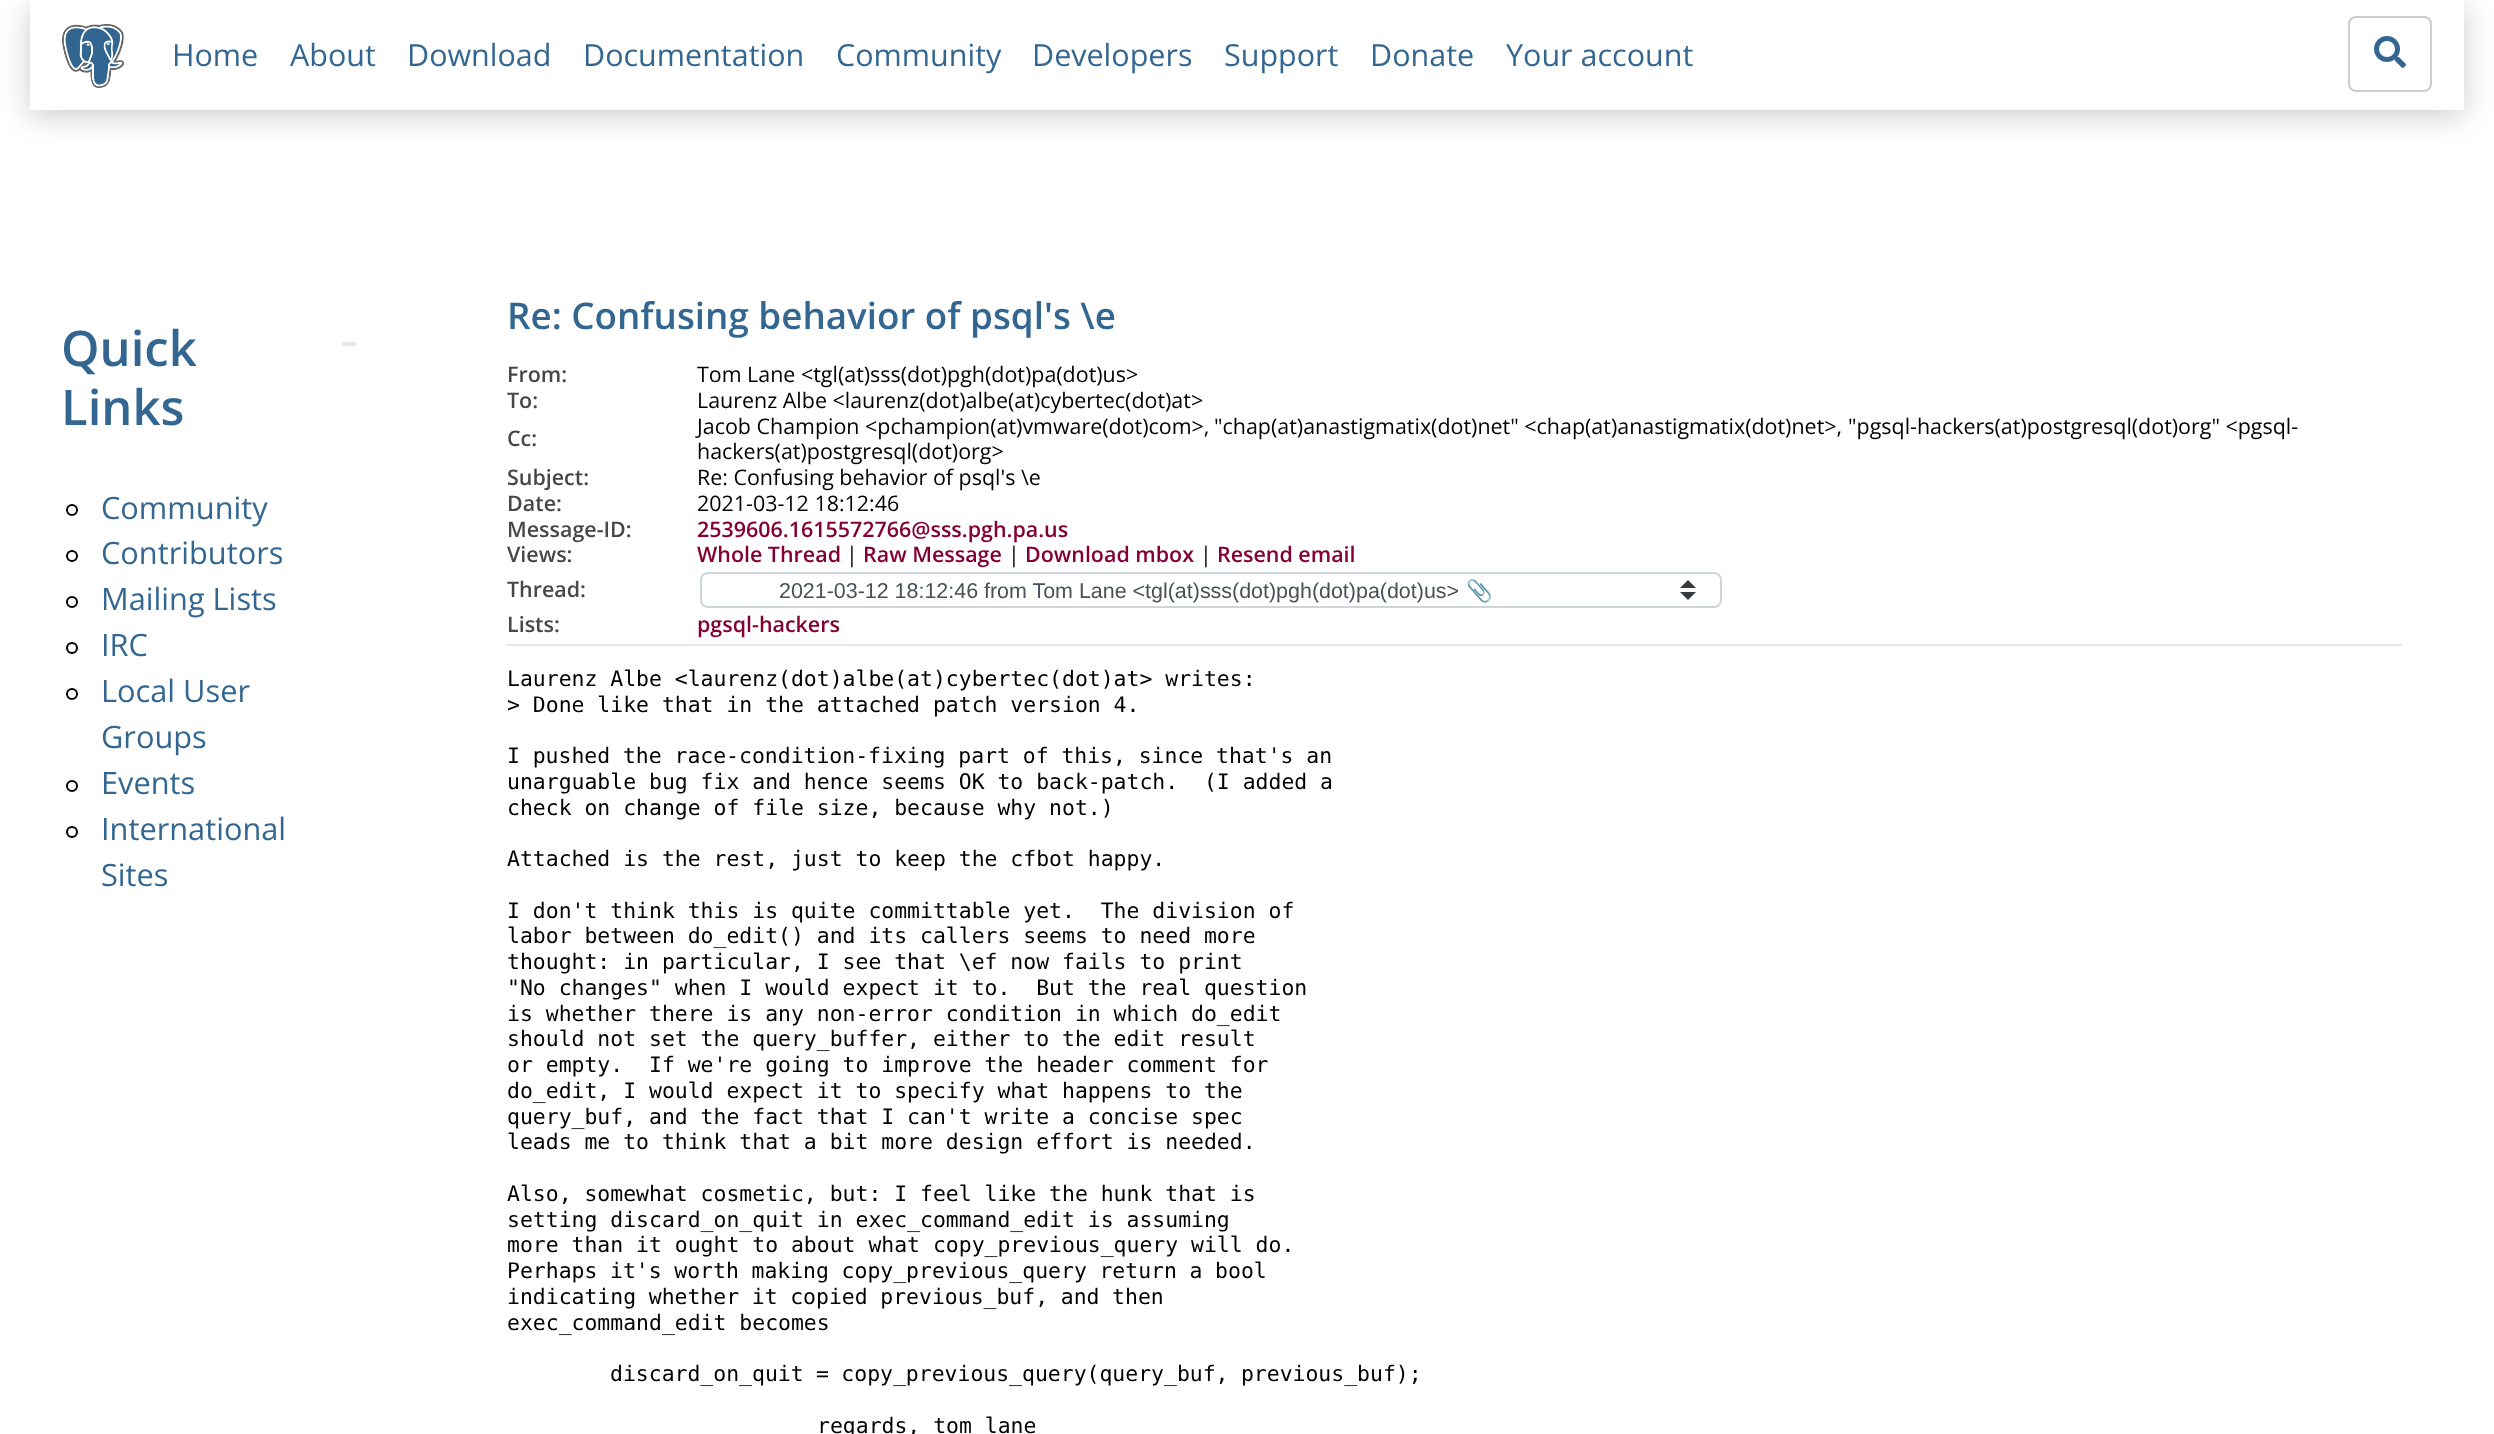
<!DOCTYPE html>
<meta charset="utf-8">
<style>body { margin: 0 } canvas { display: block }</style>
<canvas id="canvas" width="2494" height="1434"></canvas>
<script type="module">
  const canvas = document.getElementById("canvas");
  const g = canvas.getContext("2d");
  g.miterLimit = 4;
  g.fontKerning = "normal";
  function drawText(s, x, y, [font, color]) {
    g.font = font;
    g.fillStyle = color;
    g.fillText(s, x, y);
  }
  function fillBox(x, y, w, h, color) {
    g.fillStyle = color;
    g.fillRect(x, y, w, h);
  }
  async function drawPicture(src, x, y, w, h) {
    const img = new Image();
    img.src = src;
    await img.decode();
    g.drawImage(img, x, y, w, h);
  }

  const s1 = ["30.5px Open Sans", "#336791"];
  const s2 = ["600 49px Open Sans", "#336791"];
  const s3 = ["30.75px Open Sans", "#336791"];
  const s4 = ["600 36.75px Open Sans", "#336791"];
  const s5 = ["600 21.45px Open Sans", "#474747"];
  const s6 = ["21.45px Open Sans", "#000000"];
  const s7 = ["600 21.45px Open Sans", "#840032"];
  const s8 = ["21.45px Liberation Sans", "#495057"];
  const s9 = ["21.45px Noto Color Emoji", "#495057"];
  const s10 = ["21.45px DejaVu Sans Mono", "#000000"];

  fillBox(0, 0, 2494, 1434, "#FFFFFF");
  g.save();
  g.beginPath();
  g.moveTo(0, 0);
  g.lineTo(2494, 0);
  g.lineTo(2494, 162);
  g.lineTo(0, 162);
  g.closePath();
  g.moveTo(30, 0);
  g.lineTo(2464, 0);
  g.lineTo(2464, 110);
  g.lineTo(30, 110);
  g.closePath();
  g.clip("evenodd");
  g.fillStyle = "rgba(0, 0, 0, 0.2)";
  g.filter = "blur(15px)";
  g.beginPath();
  g.rect(30, 6, 2434, 110);
  g.fill();
  g.filter = "none";
  g.restore();
  await drawPicture("pic1.png", 62, 24, 62, 64);
  drawText("Home", 172, 66, s1);
  drawText("About", 290, 66, s1);
  drawText("Download", 407, 66, s1);
  drawText("Documentation", 583, 66, s1);
  drawText("Community", 836, 66, s1);
  drawText("Developers", 1032, 66, s1);
  drawText("Support", 1224, 66, s1);
  drawText("Donate", 1370, 66, s1);
  drawText("Your account", 1506, 66, s1);
  g.beginPath();
  g.roundRect(2349, 17, 82, 74, 7);
  g.strokeStyle = "#CCCCCC";
  g.lineWidth = 2;
  g.stroke();
  await drawPicture("pic2.png", 2374, 36, 32, 32);
  drawText("Quick", 61, 366, s2);
  fillBox(342, 342, 14, 4, "#E7EAE8");
  drawText("Links", 61, 425, s2);
  g.beginPath();
  g.arc(72, 510, 5, 0, Math.PI * 2);
  g.strokeStyle = "#000000";
  g.stroke();
  drawText("Community", 101, 519, s3);
  g.beginPath();
  g.arc(72, 556, 5, 0, Math.PI * 2);
  g.stroke();
  drawText("Contributors", 101, 564, s3);
  g.beginPath();
  g.arc(72, 602, 5, 0, Math.PI * 2);
  g.stroke();
  drawText("Mailing Lists", 101, 610, s3);
  g.beginPath();
  g.arc(72, 648, 5, 0, Math.PI * 2);
  g.stroke();
  drawText("IRC", 101, 656, s3);
  g.beginPath();
  g.arc(72, 694, 5, 0, Math.PI * 2);
  g.stroke();
  drawText("Local User", 101, 702, s3);
  drawText("Groups", 101, 748, s3);
  g.beginPath();
  g.arc(72, 786, 5, 0, Math.PI * 2);
  g.stroke();
  drawText("Events", 101, 794, s3);
  g.beginPath();
  g.arc(72, 832, 5, 0, Math.PI * 2);
  g.stroke();
  drawText("International", 101, 840, s3);
  drawText("Sites", 101, 886, s3);
  drawText("Re: Confusing behavior of psql's \\e", 507, 329, s4);
  fillBox(506, 644, 1896, 2, "#E7EAE8");
  drawText("From:", 507, 382, s5);
  drawText("Tom Lane <tgl(at)sss(dot)pgh(dot)pa(dot)us>", 697, 382, s6);
  drawText("To:", 507, 408, s5);
  drawText("Laurenz Albe <laurenz(dot)albe(at)cybertec(dot)at>", 697, 408, s6);
  drawText("Cc:", 507, 446, s5);
  drawText("Jacob Champion <pchampion(at)vmware(dot)com>,", 697, 434, s6);
  drawText("\"chap(at)anastigmatix(dot)net\" <chap(at)anastigmatix(dot)net>,", 1214, 434, s6);
  drawText("\"pgsql-hackers(at)postgresql(dot)org\" <pgsql-", 1848, 434, s6);
  drawText("hackers(at)postgresql(dot)org>", 697, 459, s6);
  drawText("Subject:", 507, 485, s5);
  drawText("Re: Confusing behavior of psql's \\e", 697, 485, s6);
  drawText("Date:", 507, 511, s5);
  drawText("2021-03-12 18:12:46", 697, 511, s6);
  drawText("Message-ID:", 507, 537, s5);
  drawText("2539606.1615572766@sss.pgh.pa.us", 697, 537, s7);
  drawText("Views:", 507, 562, s5);
  drawText("Whole Thread", 697, 562, s7);
  drawText("|", 846, 562, s6);
  drawText("Raw Message", 863, 562, s7);
  drawText("|", 1008, 562, s6);
  drawText("Download mbox", 1025, 562, s7);
  drawText("|", 1200, 562, s6);
  drawText("Resend email", 1217, 562, s7);
  drawText("Thread:", 507, 597, s5);
  g.fillStyle = "#343A40";
  g.beginPath();
  g.moveTo(1688, 580);
  g.lineTo(1680, 588);
  g.lineTo(1696, 588);
  g.closePath();
  g.moveTo(1688, 600);
  g.lineTo(1680, 592);
  g.lineTo(1696, 592);
  g.closePath();
  g.fill();
  g.beginPath();
  g.roundRect(701, 573, 1020, 34, 7);
  g.strokeStyle = "#CED4DA";
  g.stroke();
  drawText("2021-03-12 18:12:46 from Tom Lane <tgl(at)sss(dot)pgh(dot)pa(dot)us>", 779, 598, s8);
  drawText("📎", 1466, 598, s9);
  drawText("Lists:", 507, 632, s5);
  drawText("pgsql-hackers", 697, 632, s7);
  drawText("Laurenz Albe <laurenz(dot)albe(at)cybertec(dot)at> writes:", 507, 686, s10);
  drawText("> Done like that in the attached patch version 4.", 507, 712, s10);
  g.wordSpacing = "-0.1px";
  drawText("I pushed the race-condition-fixing part of this, since that's an", 507, 763, s10);
  g.wordSpacing = "0px";
  drawText("unarguable bug fix and hence seems OK to back-patch.  (I added a", 507, 789, s10);
  drawText("check on change of file size, because why not.)", 507, 815, s10);
  drawText("Attached is the rest, just to keep the cfbot happy.", 507, 866, s10);
  drawText("I don't think this is quite committable yet.  The division of", 507, 918, s10);
  drawText("labor between do_edit() and its callers seems to need more", 507, 943, s10);
  drawText("thought: in particular, I see that \\ef now fails to print", 507, 969, s10);
  drawText("\"No changes\" when I would expect it to.  But the real question", 507, 995, s10);
  drawText("is whether there is any non-error condition in which do_edit", 507, 1021, s10);
  drawText("should not set the query_buffer, either to the edit result", 507, 1046, s10);
  drawText("or empty.  If we're going to improve the header comment for", 507, 1072, s10);
  drawText("do_edit, I would expect it to specify what happens to the", 507, 1098, s10);
  drawText("query_buf, and the fact that I can't write a concise spec", 507, 1124, s10);
  drawText("leads me to think that a bit more design effort is needed.", 507, 1149, s10);
  drawText("Also, somewhat cosmetic, but: I feel like the hunk that is", 507, 1201, s10);
  drawText("setting discard_on_quit in exec_command_edit is assuming", 507, 1227, s10);
  drawText("more than it ought to about what copy_previous_query will do.", 507, 1252, s10);
  g.wordSpacing = "-0.25px";
  drawText("Perhaps it's worth making copy_previous_query return a bool", 507, 1278, s10);
  drawText("indicating whether it copied previous_buf, and then", 507, 1304, s10);
  g.wordSpacing = "0px";
  drawText("exec_command_edit becomes", 507, 1330, s10);
  g.wordSpacing = "-0.5px";
  drawText("discard_on_quit = copy_previous_query(query_buf, previous_buf);", 610, 1381, s10);
  g.wordSpacing = "0px";
  drawText("regards, tom lane", 817, 1433, s10);
</script>
